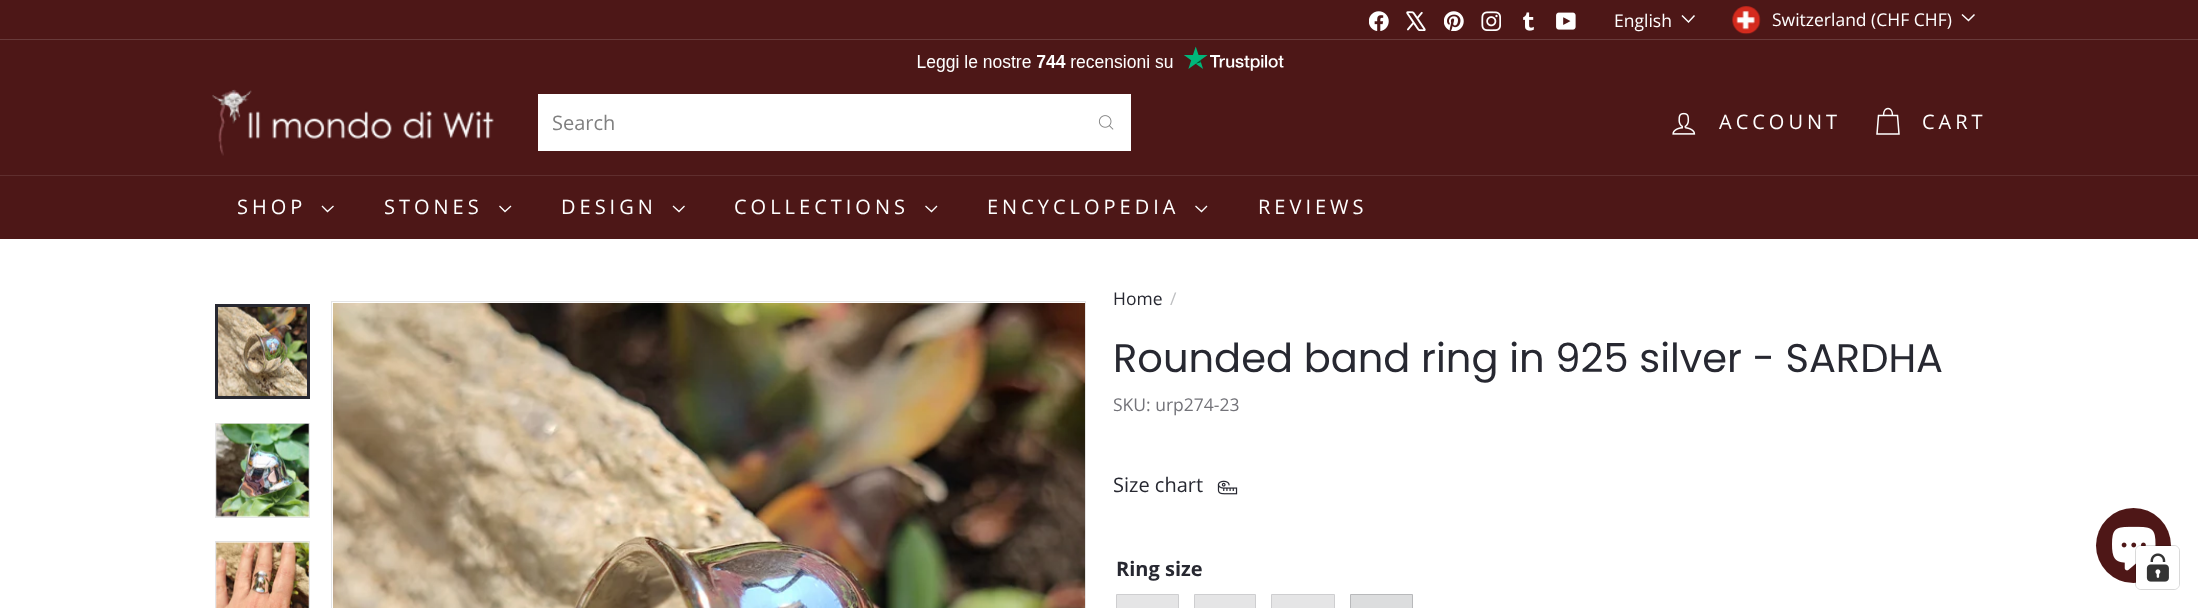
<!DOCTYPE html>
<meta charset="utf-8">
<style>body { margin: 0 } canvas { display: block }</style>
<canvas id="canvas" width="2198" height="608"></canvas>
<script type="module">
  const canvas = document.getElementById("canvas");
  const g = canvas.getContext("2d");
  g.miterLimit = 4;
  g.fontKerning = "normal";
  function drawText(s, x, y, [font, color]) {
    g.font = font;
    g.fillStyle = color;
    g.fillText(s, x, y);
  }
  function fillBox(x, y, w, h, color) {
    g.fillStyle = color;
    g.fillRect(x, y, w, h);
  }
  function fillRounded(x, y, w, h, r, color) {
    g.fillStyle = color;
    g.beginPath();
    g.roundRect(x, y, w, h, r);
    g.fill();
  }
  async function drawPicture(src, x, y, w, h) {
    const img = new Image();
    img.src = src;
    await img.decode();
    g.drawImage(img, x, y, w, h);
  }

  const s1 = ["17.5px Open Sans", "#FFFFFF"];
  const s2 = ["20px Open Sans", "#808080"];
  const s3 = ["20px Open Sans", "#FFFFFF"];
  const s4 = ["17.5px Open Sans", "#272831"];
  const s5 = ["17.5px Open Sans", "#BEBFC1"];
  const s6 = ["40px Poppins", "#272831"];
  const s7 = ["17.5px Open Sans", "#737379"];
  const s8 = ["20px Open Sans", "#272831"];
  const s9 = ["bold 20px Open Sans", "#272831"];

  fillBox(0, 0, 2198, 608, "#FFFFFF");
  fillBox(0, 0, 2198, 39, "#4D1717");
  await drawPicture("pic1.png", 1369, 11, 20, 20);
  await drawPicture("pic2.png", 1406, 11, 20, 20);
  await drawPicture("pic3.png", 1444, 11, 20, 20);
  await drawPicture("pic4.png", 1481, 11, 20, 20);
  await drawPicture("pic5.png", 1523, 12, 11, 19);
  await drawPicture("pic6.png", 1556, 12, 20, 18);
  drawText("English", 1614, 27, s1);
  g.beginPath();
  g.moveTo(1682, 15.5);
  g.lineTo(1688.5, 22);
  g.lineTo(1694.5, 15.5);
  g.strokeStyle = "#FFFFFF";
  g.lineWidth = 1.5;
  g.stroke();
  await drawPicture("pic7.png", 1732, 6, 29, 29);
  drawText("Switzerland (CHF CHF)", 1772, 26, s1);
  g.beginPath();
  g.moveTo(1962, 14.5);
  g.lineTo(1968.5, 20.5);
  g.lineTo(1974.5, 14.5);
  g.stroke();
  fillBox(0, 39, 2198, 1, "#683A3A");
  fillBox(0, 40, 2198, 135, "#4D1717");
  await drawPicture("pic8.png", 917, 46, 367, 26);
  await drawPicture("pic9.png", 212, 89, 282, 67);
  fillBox(538, 94, 593, 57, "#FFFFFF");
  drawText("Search", 552, 130, s2);
  await drawPicture("pic10.png", 1098, 115, 16, 15);
  await drawPicture("pic11.png", 1672, 112, 24, 23);
  g.letterSpacing = "4px";
  drawText("ACCOUNT", 1719, 129, s3);
  g.beginPath();
  g.moveTo(1883.5, 115.5);
  g.bezierCurveTo(1883.5, 106, 1892.5, 106, 1892.5, 115.5);
  g.moveTo(1878.5, 115.5);
  g.lineTo(1897.5, 115.5);
  g.lineTo(1899, 134);
  g.lineTo(1877, 134);
  g.closePath();
  g.stroke();
  drawText("CART", 1922, 129, s3);
  fillBox(0, 176, 2198, 63, "#4D1717");
  fillBox(0, 175, 2198, 1, "#5F2E2E");
  drawText("SHOP", 237, 214, s3);
  g.beginPath();
  g.moveTo(322, 206);
  g.lineTo(327.5, 211.5);
  g.lineTo(333.5, 206);
  g.lineWidth = 1.3;
  g.stroke();
  drawText("STONES", 384, 214, s3);
  g.beginPath();
  g.moveTo(499.5, 206);
  g.lineTo(505, 211.5);
  g.lineTo(511, 206);
  g.stroke();
  drawText("DESIGN", 561, 214, s3);
  g.beginPath();
  g.moveTo(673, 206);
  g.lineTo(679, 211.5);
  g.lineTo(684.5, 206);
  g.stroke();
  drawText("COLLECTIONS", 734, 214, s3);
  g.beginPath();
  g.moveTo(925.5, 206);
  g.lineTo(931.5, 211.5);
  g.lineTo(937, 206);
  g.stroke();
  drawText("ENCYCLOPEDIA", 987, 214, s3);
  g.beginPath();
  g.moveTo(1195.5, 206);
  g.lineTo(1201.5, 211.5);
  g.lineTo(1207, 206);
  g.stroke();
  drawText("REVIEWS", 1258, 214, s3);
  await drawPicture("pic12.png", 218, 307, 89, 89);
  g.strokeStyle = "#272831";
  g.lineWidth = 3;
  g.strokeRect(216.5, 305.5, 92, 92);
  g.strokeStyle = "#E5E5E6";
  g.lineWidth = 1;
  g.strokeRect(215.5, 423.5, 94, 94);
  await drawPicture("pic13.png", 216, 423, 93, 94);
  g.strokeRect(215.5, 541.5, 94, 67);
  await drawPicture("pic14.png", 216, 541, 93, 67);
  g.strokeRect(331.5, 301.5, 754, 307);
  await drawPicture("pic15.png", 333, 303, 752, 305);
  g.letterSpacing = "0px";
  drawText("Home", 1113, 305, s4);
  drawText("/", 1170, 305, s5);
  drawText("Rounded band ring in 925 silver - SARDHA", 1113, 372, s6);
  drawText("SKU: urp274-23", 1113, 411, s7);
  drawText("Size chart", 1113, 492, s8);
  await drawPicture("pic16.png", 1217, 480, 21, 15);
  drawText("Ring size", 1116, 576, s9);
  g.fillStyle = "#E5E5E6";
  g.beginPath();
  g.rect(1116.5, 594.5, 62, 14);
  g.fill();
  g.strokeStyle = "#CECED0";
  g.stroke();
  g.beginPath();
  g.rect(1194.5, 594.5, 61, 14);
  g.fill();
  g.stroke();
  g.beginPath();
  g.rect(1271.5, 594.5, 63, 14);
  g.fill();
  g.stroke();
  g.fillStyle = "#DCDDDE";
  g.beginPath();
  g.rect(1350.5, 594.5, 62, 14);
  g.fill();
  g.strokeStyle = "#B8B9BB";
  g.stroke();
  g.fillStyle = "#4E1717";
  g.beginPath();
  g.arc(2133.5, 545.5, 37.5, 0, Math.PI * 2);
  g.fill();
  await drawPicture("pic17.png", 2112, 526, 44, 45);
  g.beginPath();
  g.roundRect(2135.5, 545.5, 44, 44, 5.5);
  g.strokeStyle = "rgba(0, 0, 0, 0.15)";
  g.stroke();
  fillRounded(2136, 546, 43, 43, 5, "#FFFFFF");
  await drawPicture("pic18.png", 2146, 553, 23, 29);
</script>
